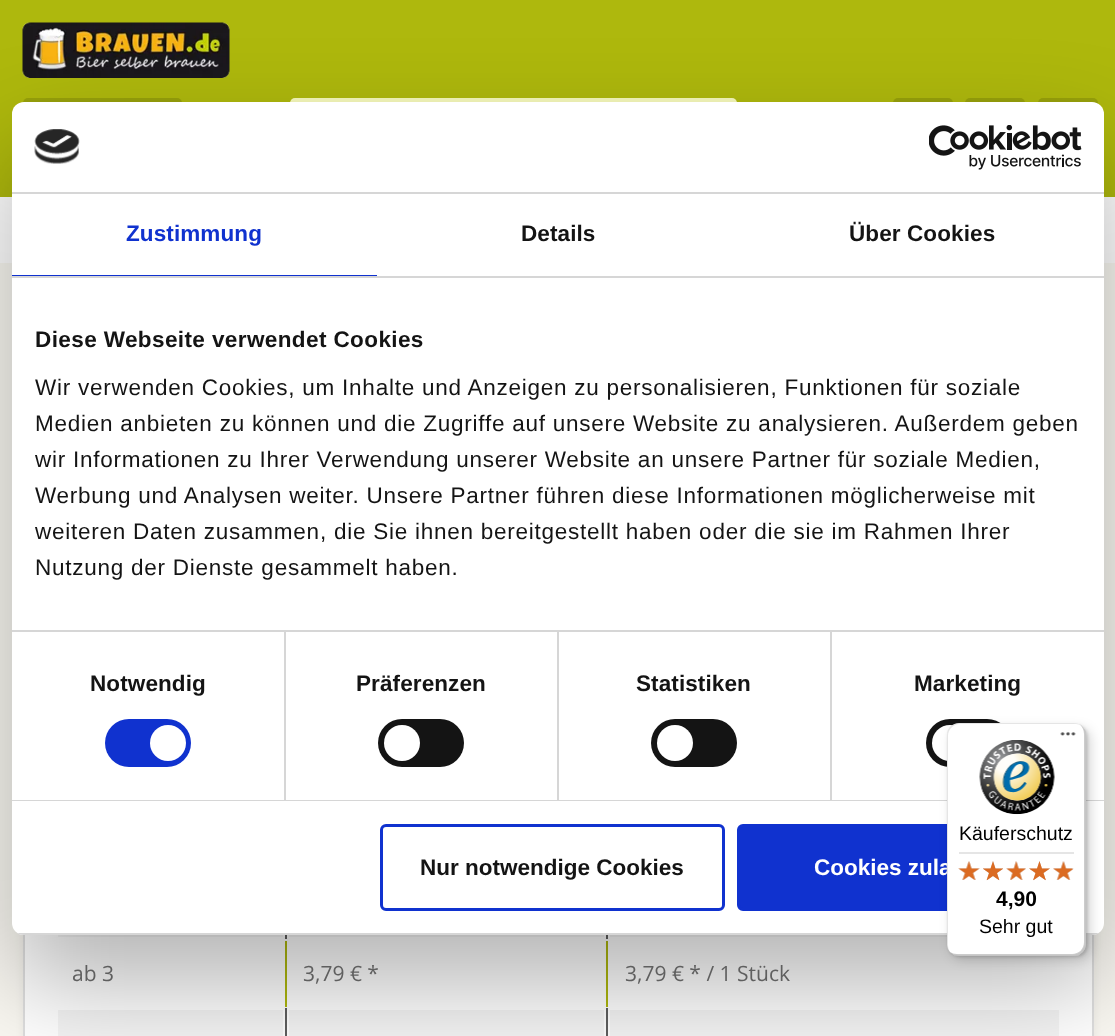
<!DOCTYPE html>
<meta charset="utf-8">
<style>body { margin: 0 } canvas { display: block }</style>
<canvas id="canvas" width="1115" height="1036"></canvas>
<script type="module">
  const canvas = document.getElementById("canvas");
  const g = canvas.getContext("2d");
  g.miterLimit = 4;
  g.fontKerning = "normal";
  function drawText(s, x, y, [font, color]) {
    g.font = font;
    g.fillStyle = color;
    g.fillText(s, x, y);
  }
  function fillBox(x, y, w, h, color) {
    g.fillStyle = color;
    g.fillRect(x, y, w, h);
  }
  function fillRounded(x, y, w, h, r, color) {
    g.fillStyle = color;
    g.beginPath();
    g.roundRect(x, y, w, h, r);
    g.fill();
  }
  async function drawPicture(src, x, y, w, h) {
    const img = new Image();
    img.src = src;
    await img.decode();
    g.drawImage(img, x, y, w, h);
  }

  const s1 = ["bold 22.5px Liberation Sans", "#1032CF"];
  const s2 = ["bold 22.5px Liberation Sans", "#141414"];
  const s3 = ["22.5px Liberation Sans", "#141414"];
  const s4 = ["bold 22.5px Liberation Sans", "#FFFFFF"];
  const s5 = ["19.5px Liberation Sans", "#000000"];
  const s6 = ["bold 21px Liberation Sans", "#000000"];
  const s7 = ["21px Open Sans", "#5F5F5F"];

  fillBox(0, 0, 1115, 1036, "#FAF8F2");
  fillBox(0, 0, 1115, 197, "#AEB80D");
  await drawPicture("pic15.png", 22, 22, 208, 56);
  fillRounded(23, 98, 159, 60, 5, "#97A00B");
  fillRounded(290, 98, 447, 60, 5, "#F6F9BB");
  fillRounded(893, 98, 60, 60, 5, "#97A00B");
  fillRounded(965, 98, 60, 60, 5, "#97A00B");
  fillRounded(1038, 98, 60, 60, 5, "#97A00B");
  fillBox(0, 197, 1115, 66, "#FFFFFF");
  g.fillStyle = "rgba(0, 0, 0, 0.05)";
  g.filter = "blur(4px)";
  g.beginPath();
  g.roundRect(23, 401, 1071, 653, 6);
  g.fill();
  g.filter = "none";
  fillBox(25, 935, 1067, 101, "#FFFFFF");
  g.strokeStyle = "#DEDEDE";
  g.lineWidth = 2;
  g.strokeRect(24, 402, 1069, 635);
  fillBox(285, 935, 323, 4, "#5F5F5F");
  fillBox(58, 935, 225, 2, "#F5F5F5");
  g.strokeStyle = "#FFFFFF";
  g.strokeRect(57, 874, 227, 64);
  fillBox(289, 935, 315, 2, "#F5F5F5");
  g.strokeRect(288, 874, 317, 64);
  fillBox(610, 935, 337, 2, "#F5F5F5");
  g.strokeRect(609, 874, 451, 64);
  fillBox(285, 941, 323, 66, "#AEB80D");
  fillBox(287, 941, 319, 66, "#FFFFFF");
  fillBox(285, 1008, 323, 28, "#5F5F5F");
  fillBox(58, 1010, 225, 26, "#F5F5F5");
  g.beginPath();
  g.rect(288, 1009, 317, 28);
  g.fill();
  g.stroke();
  fillBox(610, 1010, 449, 26, "#F5F5F5");
  g.fillStyle = "rgba(0, 0, 0, 0.3)";
  g.filter = "blur(51px)";
  g.beginPath();
  g.roundRect(12, 150, 1092, 833, 12);
  g.fill();
  g.filter = "none";
  fillRounded(12, 102, 1092, 833, 12, "#FFFFFF");
  fillBox(12, 192, 1092, 2, "#D6D6D6");
  await drawPicture("pic1.png", 34, 129, 46, 35);
  await drawPicture("pic2.png", 929, 125, 153, 45);
  fillBox(12, 276, 1092, 2, "#D6D6D6");
  fillBox(12, 275, 365, 1, "#1032CF");
  g.letterSpacing = "0.1px";
  drawText("Zustimmung", 126, 241, s1);
  drawText("Details", 521, 241, s2);
  drawText("Über Cookies", 849, 241, s2);
  fillBox(12, 630, 1092, 2, "#D6D6D6");
  g.letterSpacing = "0.4px";
  drawText("Diese Webseite verwendet Cookies", 35, 347, s2);
  g.letterSpacing = "0.75px";
  drawText("Wir verwenden Cookies, um Inhalte und Anzeigen zu personalisieren, Funktionen für soziale", 35, 395, s3);
  drawText("Medien anbieten zu können und die Zugriffe auf unsere Website zu analysieren. Außerdem geben", 35, 431, s3);
  drawText("wir Informationen zu Ihrer Verwendung unserer Website an unsere Partner für soziale Medien,", 35, 467, s3);
  drawText("Werbung und Analysen weiter. Unsere Partner führen diese Informationen möglicherweise mit", 35, 503, s3);
  drawText("weiteren Daten zusammen, die Sie ihnen bereitgestellt haben oder die sie im Rahmen Ihrer", 35, 539, s3);
  drawText("Nutzung der Dienste gesammelt haben.", 35, 575, s3);
  fillBox(12, 800, 1092, 1, "#D6D6D6");
  fillBox(284, 632, 2, 168, "#D6D6D6");
  g.letterSpacing = "0.1px";
  drawText("Notwendig", 90, 691, s2);
  fillRounded(105, 719, 86, 48, 24, "#1032CF");
  g.fillStyle = "#FFFFFF";
  g.beginPath();
  g.arc(168, 743, 18, 0, Math.PI * 2);
  g.fill();
  fillBox(557, 632, 2, 168, "#D6D6D6");
  drawText("Präferenzen", 356, 691, s2);
  fillRounded(378, 719, 86, 48, 24, "#141414");
  g.fillStyle = "#FFFFFF";
  g.beginPath();
  g.arc(402, 743, 18, 0, Math.PI * 2);
  g.fill();
  fillBox(830, 632, 2, 168, "#D6D6D6");
  drawText("Statistiken", 636, 691, s2);
  fillRounded(651, 719, 86, 48, 24, "#141414");
  g.fillStyle = "#FFFFFF";
  g.beginPath();
  g.arc(675, 743, 18, 0, Math.PI * 2);
  g.fill();
  drawText("Marketing", 914, 691, s2);
  fillRounded(926, 719, 85, 48, 24, "#141414");
  g.fillStyle = "#FFFFFF";
  g.beginPath();
  g.arc(950, 743, 18, 0, Math.PI * 2);
  g.fill();
  g.save();
  g.beginPath();
  g.roundRect(12, 102, 1092, 833, 12);
  g.clip();
  fillBox(12, 933, 1092, 2, "#D6D6D6");
  g.restore();
  g.beginPath();
  g.roundRect(381.5, 825.5, 342, 84, 4.5);
  g.strokeStyle = "#1032CF";
  g.lineWidth = 3;
  g.stroke();
  g.letterSpacing = "0px";
  drawText("Nur notwendige Cookies", 420, 875, s2);
  g.fillStyle = "#1032CF";
  g.beginPath();
  g.roundRect(738.5, 825.5, 342, 84, 4.5);
  g.fill();
  g.stroke();
  drawText("Cookies zula", 814, 875, s4);
  g.fillStyle = "rgba(0, 0, 0, 0.15)";
  g.filter = "blur(6px)";
  g.beginPath();
  g.roundRect(951, 728, 140, 232, 12);
  g.fill();
  g.filter = "none";
  g.filter = "blur(1.5px)";
  g.beginPath();
  g.roundRect(948, 725, 140, 232, 12);
  g.fill();
  g.filter = "none";
  fillRounded(947, 723, 139, 233, 12, "#FFFFFF");
  g.fillStyle = "rgba(0, 0, 0, 0.1)";
  g.beginPath();
  g.moveTo(960, 724);
  g.lineTo(1076, 724);
  g.bezierCurveTo(1078, 724, 1080, 725, 1081, 726);
  g.bezierCurveTo(1079, 724, 1077, 723, 1074, 723);
  g.lineTo(959, 723);
  g.bezierCurveTo(952, 723, 947, 728, 947, 735);
  g.lineTo(947, 944);
  g.bezierCurveTo(947, 947, 948, 950, 950, 952);
  g.bezierCurveTo(949, 950, 948, 948, 948, 945);
  g.lineTo(948, 736);
  g.bezierCurveTo(948, 730, 953, 724, 960, 724);
  g.closePath();
  g.fill();
  g.fillStyle = "rgba(0, 0, 0, 0.2)";
  g.beginPath();
  g.moveTo(950, 952);
  g.bezierCurveTo(952, 954, 955, 956, 959, 956);
  g.lineTo(1074, 956);
  g.bezierCurveTo(1081, 956, 1086, 951, 1086, 944);
  g.lineTo(1086, 735);
  g.bezierCurveTo(1086, 730, 1083, 726, 1079, 724);
  g.bezierCurveTo(1082, 726, 1084, 730, 1084, 734);
  g.lineTo(1084, 942);
  g.bezierCurveTo(1084, 949, 1079, 954, 1072, 954);
  g.lineTo(957, 954);
  g.bezierCurveTo(954, 954, 952, 953, 950, 952);
  g.closePath();
  g.fill();
  g.fillStyle = "rgba(50, 50, 50, 0.2)";
  g.beginPath();
  g.moveTo(950, 952);
  g.bezierCurveTo(952, 954, 955, 956, 959, 956);
  g.lineTo(1074, 956);
  g.bezierCurveTo(1081, 956, 1086, 951, 1086, 944);
  g.lineTo(1086, 735);
  g.bezierCurveTo(1086, 732, 1085, 729, 1083, 727);
  g.bezierCurveTo(1084, 729, 1085, 731, 1085, 734);
  g.lineTo(1085, 943);
  g.bezierCurveTo(1085, 949, 1080, 955, 1073, 955);
  g.lineTo(958, 955);
  g.bezierCurveTo(955, 955, 952, 954, 950, 952);
  g.closePath();
  g.fill();
  g.fillStyle = "rgba(255, 255, 255, 0.3)";
  g.beginPath();
  g.moveTo(950, 952);
  g.bezierCurveTo(952, 954, 955, 956, 959, 956);
  g.lineTo(1074, 956);
  g.bezierCurveTo(1081, 956, 1086, 951, 1086, 944);
  g.lineTo(1086, 735);
  g.bezierCurveTo(1086, 731, 1084, 728, 1082, 726);
  g.bezierCurveTo(1084, 728, 1085, 731, 1085, 734);
  g.lineTo(1085, 943);
  g.bezierCurveTo(1085, 949, 1080, 955, 1073, 955);
  g.lineTo(958, 955);
  g.bezierCurveTo(955, 955, 952, 954, 950, 952);
  g.closePath();
  g.fill();
  await drawPicture("pic3.png", 1060, 732, 16, 4);
  await drawPicture("pic4.png", 979, 740, 76, 75);
  drawText("Käuferschutz", 959, 840, s5);
  fillBox(959, 852, 115, 2, "#E5E5E5");
  await drawPicture("pic5.png", 958, 861, 22, 19);
  await drawPicture("pic6.png", 983, 861, 20, 19);
  await drawPicture("pic7.png", 1006, 861, 20, 19);
  await drawPicture("pic8.png", 1029, 861, 21, 19);
  await drawPicture("pic9.png", 1053, 861, 21, 19);
  await drawPicture("pic10.png", 958, 861, 22, 19);
  await drawPicture("pic11.png", 983, 861, 20, 20);
  await drawPicture("pic12.png", 1006, 861, 20, 19);
  await drawPicture("pic13.png", 1029, 861, 21, 20);
  await drawPicture("pic14.png", 1053, 861, 20, 19);
  drawText("4,90", 996, 906, s6);
  drawText("Sehr gut", 979, 933, s5);
  drawText("ab 3", 72, 981, s7);
  drawText("3,79 € *", 303, 981, s7);
  drawText("3,79 € * / 1 Stück", 625, 981, s7);
</script>
